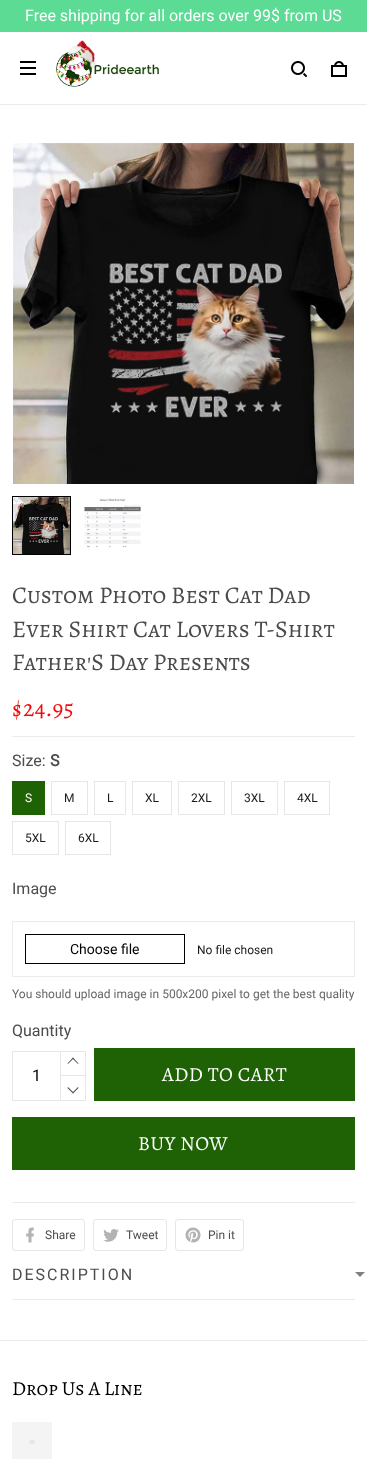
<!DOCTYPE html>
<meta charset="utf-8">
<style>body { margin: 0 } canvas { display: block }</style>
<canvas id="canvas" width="367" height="1459"></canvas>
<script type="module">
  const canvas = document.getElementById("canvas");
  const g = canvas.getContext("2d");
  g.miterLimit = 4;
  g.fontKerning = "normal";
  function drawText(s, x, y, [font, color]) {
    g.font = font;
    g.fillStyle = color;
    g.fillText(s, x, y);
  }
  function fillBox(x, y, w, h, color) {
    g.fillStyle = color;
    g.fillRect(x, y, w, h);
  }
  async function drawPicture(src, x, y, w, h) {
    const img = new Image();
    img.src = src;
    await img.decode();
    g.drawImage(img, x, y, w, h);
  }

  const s1 = ["16px Roboto", "#FFFFFF"];
  const s2 = ["24px Alegreya SC", "#4C4C4C"];
  const s3 = ["24px Alegreya SC", "#F20D0D"];
  const s4 = ["16px Roboto", "#4C4C4C"];
  const s5 = ["bold 16px Roboto", "#4C4C4C"];
  const s6 = ["12px Roboto", "#FFFFFF"];
  const s7 = ["12px Roboto", "#1A1A1A"];
  const s8 = ["14px Roboto", "#000000"];
  const s9 = ["12px Roboto", "#666666"];
  const s10 = ["16px Roboto", "#000000"];
  const s11 = ["20px Alegreya SC", "#FFFFFF"];
  const s12 = ["12px Roboto", "#4C4C4C"];
  const s13 = ["20px Alegreya SC", "#000000"];

  fillBox(0, 0, 367, 1459, "#FFFFFF");
  fillBox(0, 0, 367, 32, "#5CDB95");
  drawText("Free shipping for all orders over 99$ from US", 25, 21, s1);
  fillBox(0, 104, 367, 1, "#EBEBEB");
  fillBox(20, 61, 16, 2, "#000000");
  fillBox(20, 67, 16, 2, "#000000");
  fillBox(20, 73, 16, 2, "#000000");
  await drawPicture("pic1.png", 56, 40, 103, 47);
  await drawPicture("pic2.png", 291, 61, 16, 16);
  await drawPicture("pic3.png", 331, 61, 16, 16);
  await drawPicture("pic4.png", 13, 143, 341, 341);
  g.strokeStyle = "#000000";
  g.strokeRect(12.5, 496.5, 58, 58);
  await drawPicture("pic5.png", 13, 497, 57, 57);
  await drawPicture("pic6.png", 84, 498, 57, 50);
  drawText("Custom Photo Best Cat Dad", 12, 603, s2);
  drawText("Ever Shirt Cat Lovers T-Shirt", 12, 637, s2);
  drawText("Father'S Day Presents", 12, 670, s2);
  drawText("$24.95", 12, 716, s3);
  fillBox(12, 736, 343, 1, "#EBEBEB");
  drawText("Size:", 12, 766, s4);
  drawText("S", 50, 766, s5);
  fillBox(12, 781, 33, 34, "#1F6105");
  drawText("S", 25, 802, s6);
  g.strokeStyle = "#E6E6E6";
  g.strokeRect(51.5, 781.5, 36, 33);
  drawText("M", 64, 802, s7);
  g.strokeRect(94.5, 781.5, 31, 33);
  drawText("L", 107, 802, s7);
  g.strokeRect(132.5, 781.5, 39, 33);
  drawText("XL", 145, 802, s7);
  g.strokeRect(178.5, 781.5, 46, 33);
  drawText("2XL", 191, 802, s7);
  g.strokeRect(231.5, 781.5, 46, 33);
  drawText("3XL", 244, 802, s7);
  g.strokeRect(284.5, 781.5, 45, 33);
  drawText("4XL", 297, 802, s7);
  g.strokeRect(12.5, 821.5, 46, 33);
  drawText("5XL", 25, 842, s7);
  g.strokeRect(65.5, 821.5, 45, 33);
  drawText("6XL", 78, 842, s7);
  drawText("Image", 12, 894, s4);
  g.strokeStyle = "#EBEBEB";
  g.strokeRect(12.5, 921.5, 342, 55);
  g.strokeStyle = "#000000";
  g.strokeRect(25.5, 934.5, 159, 29);
  drawText("Choose file", 70, 954, s8);
  drawText("No file chosen", 197, 954, s7);
  drawText("You should upload image in 500x200 pixel to get the best quality", 12, 998, s9);
  drawText("Quantity", 12, 1036, s4);
  g.strokeStyle = "#E6E6E6";
  g.strokeRect(12.5, 1051.5, 73, 49);
  fillBox(60, 1052, 1, 48, "#E6E6E6");
  drawText("1", 32, 1081, s10);
  fillBox(61, 1075, 24, 1, "#E6E6E6");
  g.fillStyle = "#4C4C4C";
  g.beginPath();
  g.moveTo(67.5, 1063.5);
  g.lineTo(73, 1057.5);
  g.lineTo(73.5, 1058.5);
  g.lineTo(68, 1064);
  g.closePath();
  g.fill();
  g.beginPath();
  g.moveTo(72.5, 1058.5);
  g.lineTo(73, 1057.5);
  g.lineTo(78.5, 1063.5);
  g.lineTo(78, 1064);
  g.closePath();
  g.moveTo(78.5, 1088);
  g.lineTo(73, 1093.5);
  g.lineTo(72.5, 1092.5);
  g.lineTo(78, 1087);
  g.closePath();
  g.fill();
  g.beginPath();
  g.moveTo(73.5, 1092.5);
  g.lineTo(73, 1093.5);
  g.lineTo(67.5, 1088);
  g.lineTo(68, 1087);
  g.closePath();
  g.fill();
  fillBox(94, 1048, 261, 53, "#1F6105");
  g.letterSpacing = "0.5px";
  drawText("ADD TO CART", 162, 1081, s11);
  fillBox(12, 1117, 343, 53, "#1F6105");
  drawText("BUY NOW", 138, 1150, s11);
  fillBox(12, 1202, 343, 1, "#EBEBEB");
  g.beginPath();
  g.roundRect(12.5, 1219.5, 72, 31, 2.5);
  g.stroke();
  await drawPicture("pic7.png", 26, 1227, 8, 16);
  g.letterSpacing = "0px";
  drawText("Share", 45, 1239, s12);
  g.beginPath();
  g.roundRect(93.5, 1219.5, 73, 31, 2.5);
  g.stroke();
  await drawPicture("pic8.png", 103, 1229, 16, 13);
  drawText("Tweet", 126, 1239, s12);
  g.beginPath();
  g.roundRect(175.5, 1219.5, 68, 31, 2.5);
  g.stroke();
  await drawPicture("pic9.png", 185, 1227, 16, 16);
  drawText("Pin it", 208, 1239, s12);
  fillBox(12, 1299, 343, 1, "#EBEBEB");
  g.letterSpacing = "2px";
  drawText("DESCRIPTION", 12, 1280, s4);
  g.fillStyle = "#808080";
  g.beginPath();
  g.moveTo(355, 1272);
  g.lineTo(365, 1272);
  g.lineTo(360, 1277);
  g.closePath();
  g.fill();
  fillBox(0, 1340, 367, 1, "#EBEBEB");
  g.letterSpacing = "0px";
  drawText("Drop Us A Line", 12, 1395, s13);
  await drawPicture("pic10.png", 12, 1422, 40, 37);
</script>
